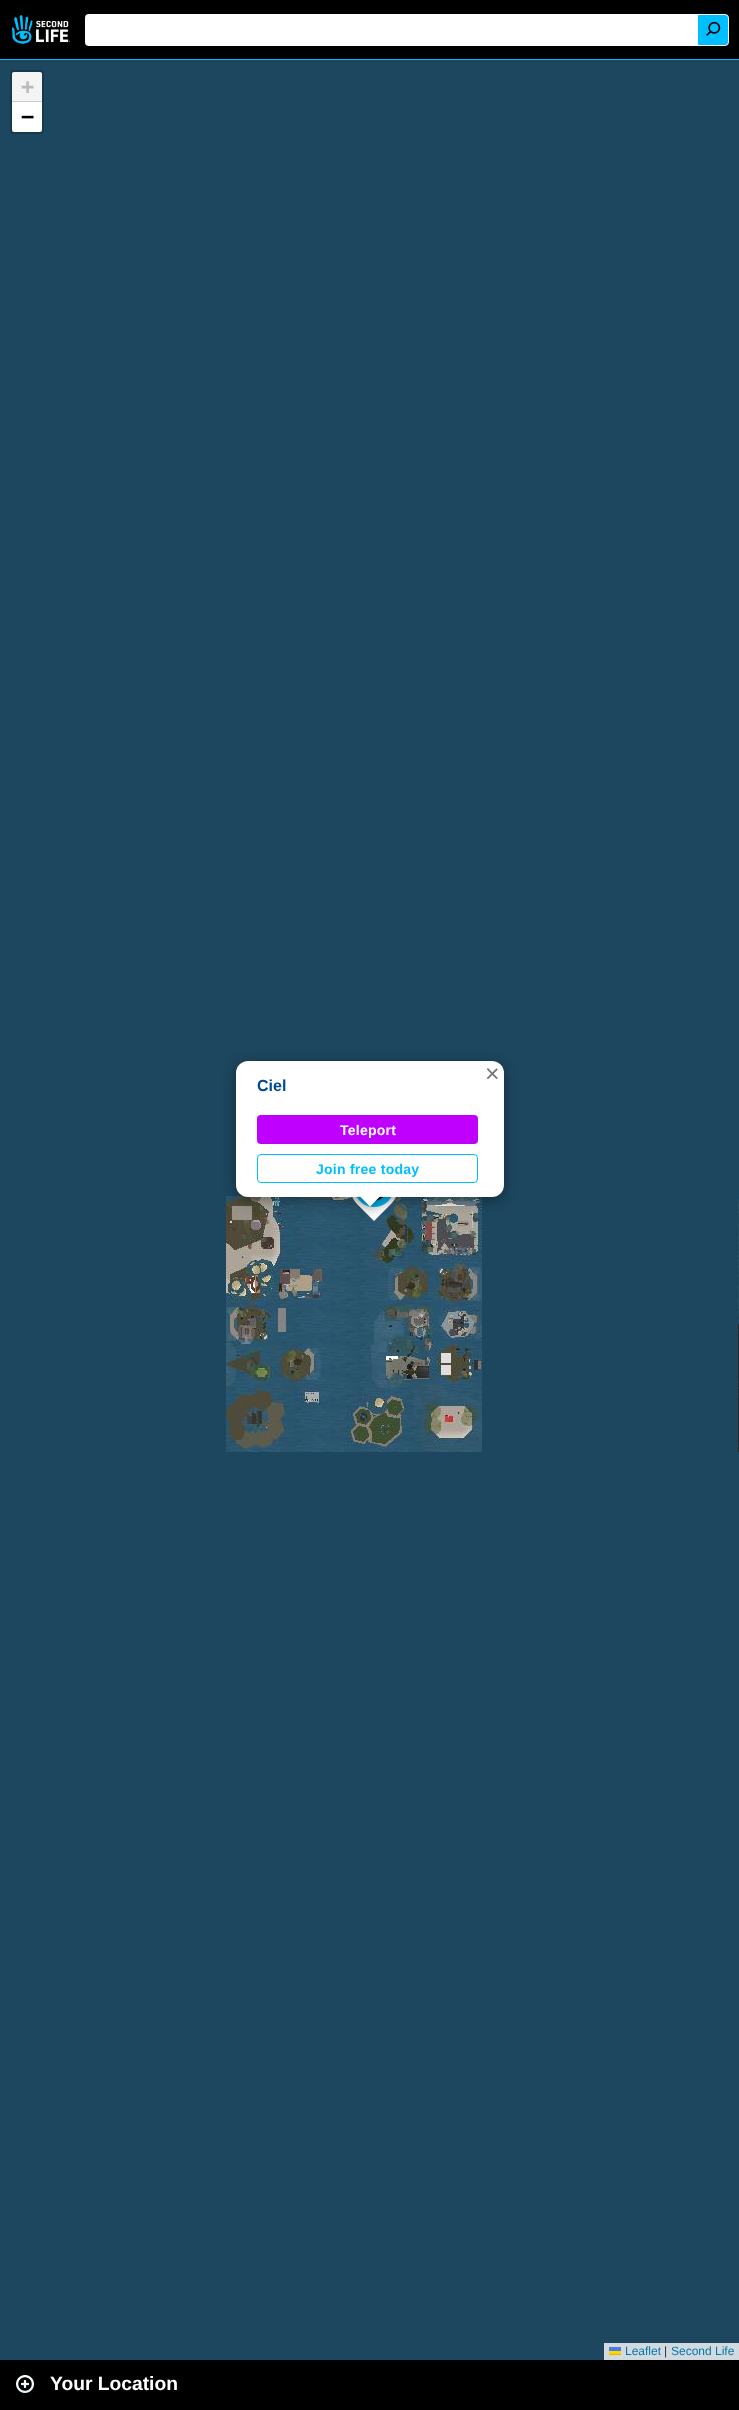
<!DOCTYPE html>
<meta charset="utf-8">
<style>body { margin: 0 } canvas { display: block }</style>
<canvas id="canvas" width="739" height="2410"></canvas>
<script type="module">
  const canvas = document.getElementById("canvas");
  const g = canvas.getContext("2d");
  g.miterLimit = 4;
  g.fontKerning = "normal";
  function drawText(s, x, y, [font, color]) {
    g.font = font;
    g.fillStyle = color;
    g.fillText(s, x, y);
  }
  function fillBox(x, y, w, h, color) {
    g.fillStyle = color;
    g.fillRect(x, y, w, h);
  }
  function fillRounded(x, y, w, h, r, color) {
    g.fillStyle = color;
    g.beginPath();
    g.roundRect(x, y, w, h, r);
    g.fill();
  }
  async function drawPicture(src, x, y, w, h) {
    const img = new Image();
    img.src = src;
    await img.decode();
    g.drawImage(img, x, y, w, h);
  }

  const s1 = ["bold 22px DejaVu Sans Mono", "#BBBBBB"];
  const s2 = ["bold 22px DejaVu Sans Mono", "#000000"];
  const s3 = ["12px Liberation Sans", "#0078A8"];
  const s4 = ["12px Liberation Sans", "#333333"];
  const s5 = ["25px Liberation Sans", "#757575"];
  const s6 = ["bold 16px Liberation Sans", "#014A8E"];
  const s7 = ["bold 14px Liberation Sans", "#FFFFFF"];
  const s8 = ["bold 14px Liberation Sans", "#00BFFF"];
  const s9 = ["bold 19.25px Liberation Sans", "#FFFFFF"];

  fillBox(0, 0, 739, 2410, "#000000");
  fillBox(0, 59, 739, 1, "#00BFFF");
  await drawPicture("pic1.png", 12, 15, 58, 29);
  g.fillStyle = "#FFFFFF";
  g.beginPath();
  g.roundRect(85, 14, 616, 32, [4, 0, 0, 4]);
  g.fill();
  g.fillStyle = "#00BFFF";
  g.beginPath();
  g.roundRect(697.5, 14.5, 31, 31, [0, 3.5, 3.5, 0]);
  g.fill();
  g.strokeStyle = "#FFFFFF";
  g.stroke();
  await drawPicture("pic2.png", 706, 21, 15, 15);
  fillBox(0, 60, 739, 2300, "#1D475F");
  g.beginPath();
  g.roundRect(11, 71, 32, 62, 3);
  g.strokeStyle = "#17394C";
  g.lineWidth = 2;
  g.stroke();
  g.fillStyle = "#F4F4F4";
  g.beginPath();
  g.roundRect(12, 72, 30, 30, [2, 2, 0, 0]);
  g.fill();
  fillBox(12, 101, 30, 1, "#CCCCCC");
  drawText("+", 21, 94, s1);
  g.fillStyle = "#FFFFFF";
  g.beginPath();
  g.roundRect(12, 102, 30, 30, [0, 0, 2, 2]);
  g.fill();
  drawText("−", 21, 124, s2);
  fillBox(604, 2343, 135, 17, "#D2DADF");
  drawText("Leaflet", 625, 2355, s3);
  fillBox(609, 2347, 12, 4, "#4C7BE1");
  fillBox(609, 2351, 12, 3, "#FFD500");
  fillBox(609, 2354, 12, 1, "#E0BC00");
  drawText("|", 664, 2355, s4);
  drawText("Second Life", 671, 2355, s3);
  await drawPicture("pic3.png", 226, 1196, 256, 256);
  await drawPicture("pic5.png", 352, 1197, 44, 24);
  g.fillStyle = "rgba(0, 0, 0, 0.4)";
  g.filter = "blur(7px)";
  g.beginPath();
  g.roundRect(236, 1064, 268, 136, 12);
  g.fill();
  g.filter = "none";
  fillRounded(236, 1061, 268, 136, 12, "#FFFFFF");
  drawText("×", 485, 1082, s5);
  drawText("Ciel", 257, 1091, s6);
  fillRounded(257, 1115, 221, 29, 4, "#BF00FF");
  g.letterSpacing = "0.25px";
  drawText("Teleport", 340, 1135, s7);
  g.beginPath();
  g.roundRect(257.5, 1154.5, 220, 28, 3.5);
  g.strokeStyle = "#00BFFF";
  g.lineWidth = 1;
  g.stroke();
  drawText("Join free today", 316, 1174, s8);
  g.save();
  g.beginPath();
  g.rect(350, 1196, 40, 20);
  g.clip();
  g.fillStyle = "rgba(0, 0, 0, 0.4)";
  g.filter = "blur(7px)";
  g.beginPath();
  g.rect(362, 1189, 17, 17);
  g.fill();
  g.filter = "none";
  g.restore();
  g.save();
  g.beginPath();
  g.rect(350, 1196, 40, 20);
  g.clip();
  g.fillStyle = "#FFFFFF";
  g.beginPath();
  g.moveTo(370, 1182.5);
  g.lineTo(382, 1194.5);
  g.lineTo(370, 1206.5);
  g.lineTo(358, 1194.5);
  g.closePath();
  g.fill();
  g.restore();
  await drawPicture("pic4.png", 738, 1196, 1, 256);
  await drawPicture("pic6.png", 16, 2375, 18, 18);
  g.letterSpacing = "0px";
  drawText("Your Location", 50, 2390, s9);
</script>
